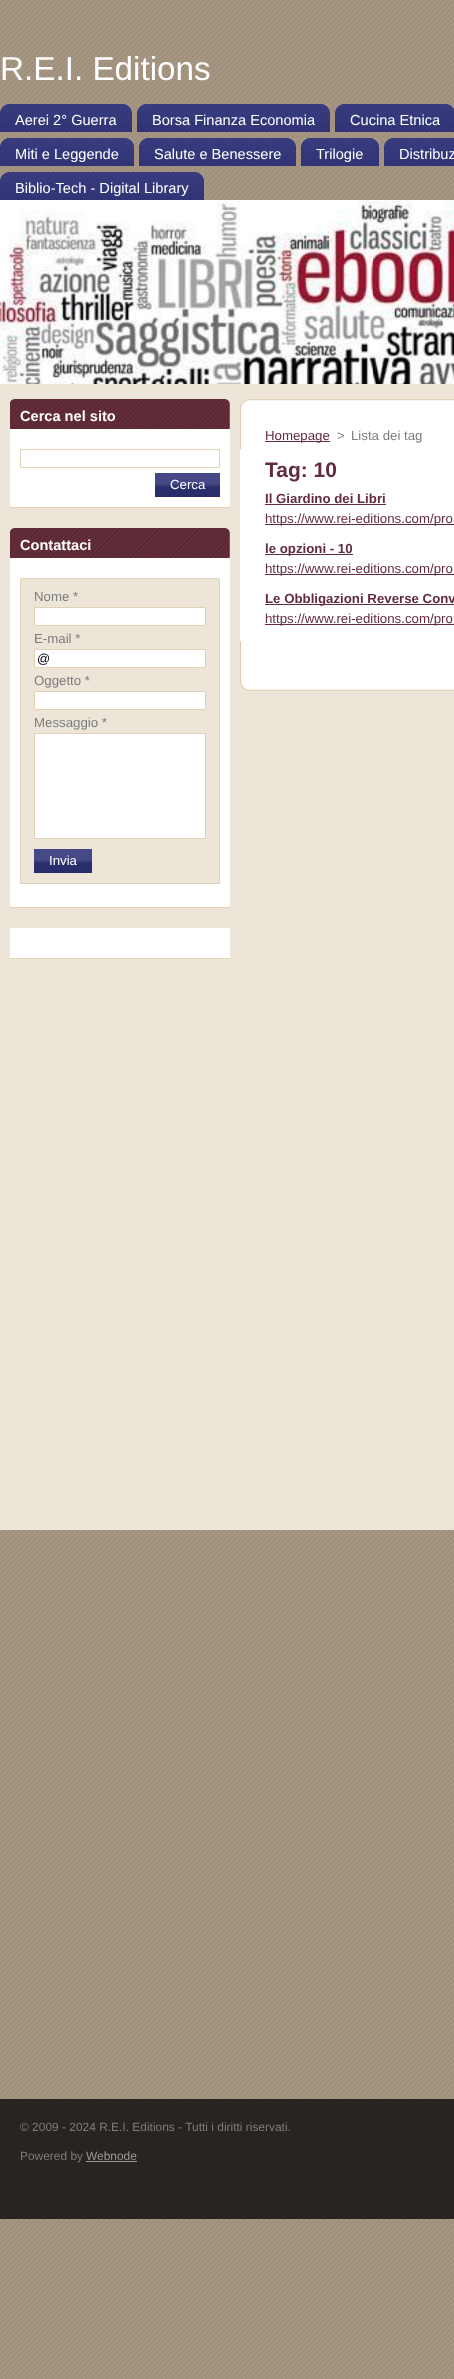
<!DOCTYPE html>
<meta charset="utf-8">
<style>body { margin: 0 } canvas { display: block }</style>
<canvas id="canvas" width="454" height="2379"></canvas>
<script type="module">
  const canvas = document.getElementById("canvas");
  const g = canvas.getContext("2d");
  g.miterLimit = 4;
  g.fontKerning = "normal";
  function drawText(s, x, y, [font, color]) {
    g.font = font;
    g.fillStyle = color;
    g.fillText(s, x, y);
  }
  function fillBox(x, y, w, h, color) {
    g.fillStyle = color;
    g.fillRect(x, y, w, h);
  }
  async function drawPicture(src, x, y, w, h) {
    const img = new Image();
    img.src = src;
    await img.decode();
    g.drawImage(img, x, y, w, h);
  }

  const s1 = ["33.25px Liberation Sans", "#FFFFFF"];
  const s2 = ["14.6px Liberation Sans", "#FFFFFF"];
  const s3 = ["bold 14.6px Liberation Sans", "#FFFFFF"];
  const s4 = ["13.25px Liberation Sans", "#FFFFFF"];
  const s5 = ["13.25px Liberation Sans", "#7D7D7D"];
  const s6 = ["13px Liberation Sans", "#000000"];
  const s7 = ["13.25px Liberation Sans", "#632C3B"];
  const s8 = ["bold 21px Liberation Sans", "#632C3B"];
  const s9 = ["bold 13.25px Liberation Sans", "#632C3B"];
  const s10 = ["11.95px Liberation Sans", "#7D7D7D"];
  const s11 = ["11.95px Liberation Sans", "#999999"];

  fillBox(0, 0, 454, 2379, "#FFFFFF");
  await drawPicture("pic1.png", 0, 0, 454, 2379);
  fillBox(0, 979, 454, 551, "#EDE5D7");
  drawText("R.E.I. Editions", 0, 80, s1);
  await drawPicture("pic2.png", 0, 104, 132, 28);
  await drawPicture("pic3.png", 0, 104, 8, 8);
  await drawPicture("pic4.png", 124, 104, 8, 8);
  drawText("Aerei 2° Guerra", 15, 125, s2);
  await drawPicture("pic5.png", 137, 104, 193, 28);
  await drawPicture("pic3.png", 137, 104, 8, 8);
  await drawPicture("pic4.png", 322, 104, 8, 8);
  drawText("Borsa Finanza Economia", 152, 125, s2);
  await drawPicture("pic6.png", 335, 104, 119, 28);
  await drawPicture("pic3.png", 335, 104, 8, 8);
  await drawPicture("pic7.png", 447, 104, 7, 5);
  drawText("Cucina Etnica", 350, 125, s2);
  await drawPicture("pic8.png", 0, 138, 134, 28);
  await drawPicture("pic3.png", 0, 138, 8, 8);
  await drawPicture("pic4.png", 126, 138, 8, 8);
  drawText("Miti e Leggende", 15, 159, s2);
  await drawPicture("pic9.png", 139, 138, 157, 28);
  await drawPicture("pic3.png", 139, 138, 8, 8);
  await drawPicture("pic4.png", 288, 138, 8, 8);
  drawText("Salute e Benessere", 154, 159, s2);
  await drawPicture("pic10.png", 301, 138, 78, 28);
  await drawPicture("pic3.png", 301, 138, 8, 8);
  await drawPicture("pic4.png", 371, 138, 8, 8);
  drawText("Trilogie", 316, 159, s2);
  await drawPicture("pic11.png", 384, 138, 70, 28);
  await drawPicture("pic3.png", 384, 138, 8, 8);
  drawText("Distribuz", 399, 159, s2);
  await drawPicture("pic12.png", 0, 172, 204, 28);
  await drawPicture("pic3.png", 0, 172, 8, 8);
  await drawPicture("pic4.png", 196, 172, 8, 8);
  drawText("Biblio-Tech - Digital Library", 15, 193, s2);
  await drawPicture("pic13.png", 0, 200, 454, 184);
  fillBox(0, 384, 454, 595, "#EDE5D8");
  fillBox(10, 429, 220, 78, "#FFFFFF");
  fillBox(10, 507, 220, 1, "#E1D1B5");
  await drawPicture("pic14.png", 10, 399, 220, 30);
  drawText("Cerca nel sito", 20, 421, s3);
  g.strokeStyle = "#E1D1B5";
  g.strokeRect(20.5, 449.5, 199, 18);
  await drawPicture("pic15.png", 155, 473, 65, 24);
  drawText("Cerca", 170, 489, s4);
  fillBox(10, 558, 220, 349, "#FFFFFF");
  fillBox(10, 907, 220, 1, "#E1D1B5");
  await drawPicture("pic14.png", 10, 528, 220, 30);
  drawText("Contattaci", 20, 550, s3);
  g.fillStyle = "#EDE5D8";
  g.beginPath();
  g.rect(20.5, 578.5, 199, 305);
  g.fill();
  g.stroke();
  drawText("Nome *", 34, 601, s5);
  g.fillStyle = "#FFFFFF";
  g.beginPath();
  g.rect(34.5, 607.5, 171, 18);
  g.fill();
  g.stroke();
  drawText("E-mail *", 34, 643, s5);
  g.fillStyle = "#FFFFFF";
  g.beginPath();
  g.rect(34.5, 649.5, 171, 18);
  g.fill();
  g.stroke();
  drawText("@", 37, 663, s6);
  drawText("Oggetto *", 34, 685, s5);
  g.fillStyle = "#FFFFFF";
  g.beginPath();
  g.rect(34.5, 691.5, 171, 18);
  g.fill();
  g.stroke();
  drawText("Messaggio *", 34, 727, s5);
  g.fillStyle = "#FFFFFF";
  g.beginPath();
  g.rect(34.5, 733.5, 171, 105);
  g.fill();
  g.stroke();
  await drawPicture("pic16.png", 34, 849, 58, 24);
  drawText("Invia", 49, 865, s4);
  fillBox(10, 928, 220, 30, "#FFFFFF");
  fillBox(10, 958, 220, 1, "#E1D1B5");
  await drawPicture("pic17.png", 240, 399, 214, 50);
  await drawPicture("pic18.png", 240, 641, 214, 50);
  fillBox(240, 449, 214, 192, "#FFFFFF");
  fillBox(265, 441, 65, 1, "#632C3B");
  drawText("Homepage", 265, 440, s7);
  drawText(">", 337, 440, s5);
  drawText("Lista dei tag", 351, 440, s5);
  drawText("Tag: 10", 265, 477, s8);
  drawText("Il Giardino dei Libri", 265, 503, s9);
  fillBox(265, 504, 121, 1, "#632C3B");
  fillBox(265, 524, 189, 1, "#632C3B");
  drawText("https://www.rei-editions.com/pro", 265, 523, s7);
  fillBox(265, 554, 88, 1, "#632C3B");
  drawText("le opzioni - 10", 265, 553, s9);
  fillBox(265, 574, 189, 1, "#632C3B");
  drawText("https://www.rei-editions.com/pro", 265, 573, s7);
  fillBox(265, 604, 189, 1, "#632C3B");
  drawText("Le Obbligazioni Reverse Conv", 265, 603, s9);
  fillBox(265, 624, 189, 1, "#632C3B");
  drawText("https://www.rei-editions.com/pro", 265, 623, s7);
  fillBox(0, 2099, 454, 120, "#28241F");
  drawText("© 2009 - 2024 R.E.I. Editions - Tutti i diritti riservati.", 20, 2131, s10);
  drawText("Powered by", 20, 2160, s10);
  fillBox(86, 2161, 51, 1, "#999999");
  drawText("Webnode", 86, 2160, s11);
</script>
